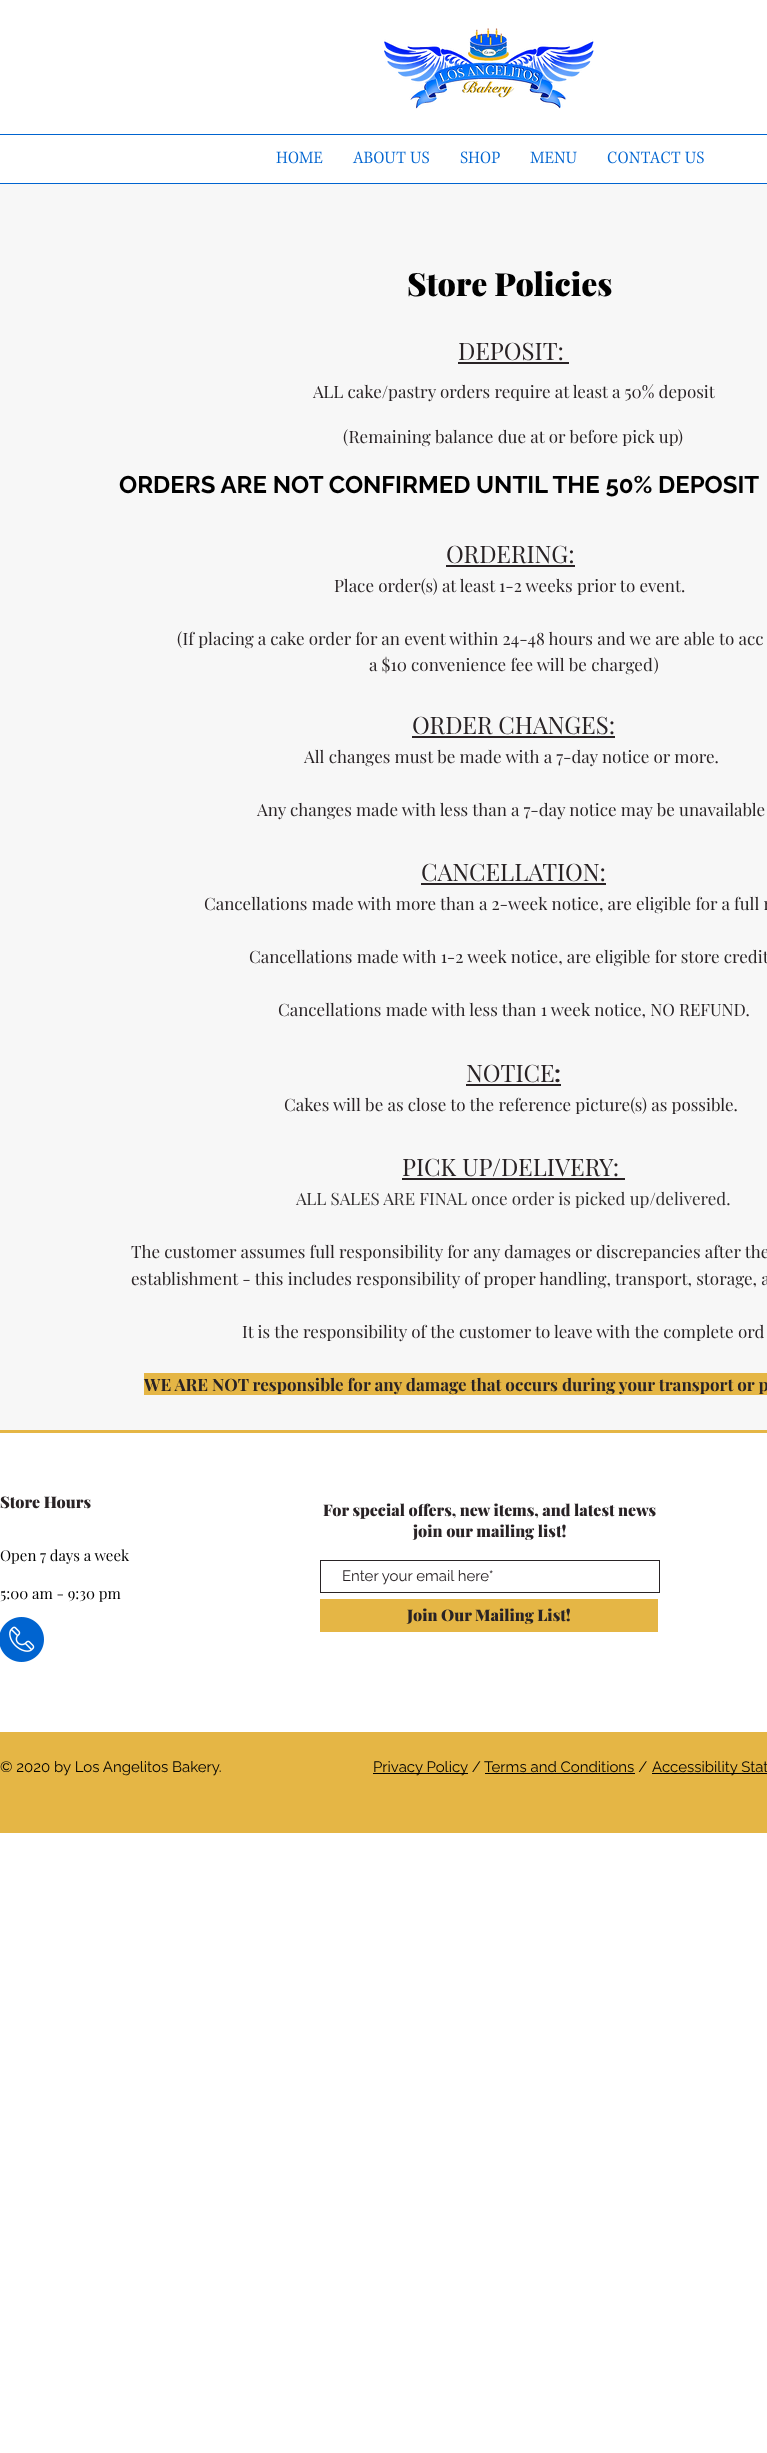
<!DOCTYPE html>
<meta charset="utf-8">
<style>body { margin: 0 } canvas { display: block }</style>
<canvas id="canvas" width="767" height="2453"></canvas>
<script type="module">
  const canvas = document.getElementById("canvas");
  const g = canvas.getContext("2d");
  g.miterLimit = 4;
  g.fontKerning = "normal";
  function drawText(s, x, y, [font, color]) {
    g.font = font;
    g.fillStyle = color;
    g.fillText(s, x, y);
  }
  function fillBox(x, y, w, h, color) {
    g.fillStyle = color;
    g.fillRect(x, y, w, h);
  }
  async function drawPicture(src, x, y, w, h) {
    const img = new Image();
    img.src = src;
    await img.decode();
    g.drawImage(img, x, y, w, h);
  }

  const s1 = ["900 32px Playfair Display", "#000000"];
  const s2 = ["24px Playfair Display", "#292325"];
  const s3 = ["17px Playfair Display", "#292325"];
  const s4 = ["bold 24px Raleway", "#000000"];
  const s5 = ["bold 24px Playfair Display", "#292325"];
  const s6 = ["17px Playfair Display", "#332F30"];
  const s7 = ["bold 17px Playfair Display", "#292325"];
  const s8 = ["900 16px Playfair Display", "#292325"];
  const s9 = ["15px Raleway", "#292325"];
  const s10 = ["15px Playfair Display", "#000000"];
  const s11 = ["15px Raleway", "#000000"];

  fillBox(0, 0, 767, 2453, "#FFFFFF");
  await drawPicture("pic1.png", 384, 28, 210, 81);
  fillBox(0, 134, 767, 1, "#0064D0");
  fillBox(0, 183, 767, 1, "#0064D0");
  await drawPicture("pic2.png", 276, 151, 47, 13);
  await drawPicture("pic3.png", 352, 151, 77, 13);
  await drawPicture("pic4.png", 460, 151, 40, 13);
  await drawPicture("pic5.png", 530, 151, 47, 13);
  await drawPicture("pic6.png", 607, 151, 97, 13);
  fillBox(0, 184, 767, 1246, "#F7F7F7");
  drawText("Store Policies", 407, 296, s1);
  drawText("DEPOSIT:", 458, 360, s2);
  fillBox(458, 362, 111, 2, "#292325");
  drawText("ALL cake/pastry orders require at least a 50% deposit", 313, 398, s3);
  drawText("(Remaining balance due at or before pick up)", 343, 443, s3);
  drawText("ORDERS ARE NOT CONFIRMED UNTIL THE 50% DEPOSIT", 119, 493, s4);
  drawText("ORDERING:", 446, 563, s2);
  fillBox(446, 565, 129, 2, "#292325");
  drawText("Place order(s) at least 1-2 weeks prior to event.", 334, 592, s3);
  drawText("(If placing a cake order for an event within 24-48 hours and we are able to acc", 177, 645, s3);
  drawText("a $10 convenience fee will be charged)", 369, 671, s3);
  drawText("ORDER CHANGES:", 412, 734, s2);
  fillBox(412, 736, 203, 2, "#292325");
  drawText("All changes must be made with a 7-day notice or more.", 304, 763, s3);
  drawText("Any changes made with less than a 7-day notice may be unavailable", 257, 816, s3);
  drawText("CANCELLATION:", 421, 881, s2);
  fillBox(421, 883, 185, 2, "#292325");
  drawText("Cancellations made with more than a 2-week notice, are eligible for a full r", 204, 910, s3);
  drawText("Cancellations made with 1-2 week notice, are eligible for store credit", 249, 963, s3);
  drawText("Cancellations made with less than 1 week notice, NO REFUND.", 278, 1016, s3);
  drawText("NOTICE", 466, 1082, s2);
  drawText(":", 554, 1082, s5);
  fillBox(466, 1084, 95, 2, "#292325");
  drawText("Cakes will be as close to the reference picture(s) as possible.", 284, 1111, s3);
  drawText("PICK UP/DELIVERY:", 402, 1176, s2);
  fillBox(402, 1178, 223, 2, "#292325");
  drawText("ALL SALES ARE FINAL once order is picked up/delivered.", 296, 1205, s6);
  drawText("The customer assumes full responsibility for any damages or discrepancies after the", 131, 1258, s3);
  drawText("establishment - this includes responsibility of proper handling, transport, storage, a", 131, 1285, s3);
  drawText("It is the responsibility of the customer to leave with the complete ord", 242, 1338, s3);
  fillBox(144, 1373, 623, 22, "#E5B645");
  drawText("WE ARE NOT responsible for any damage that occurs during your transport or p", 144, 1391, s7);
  fillBox(0, 1430, 767, 3, "#E5B645");
  drawText("Store Hours", 0, 1508, s8);
  drawText("For special offers, new items, and latest news", 323, 1516, s8);
  drawText("join our mailing list!", 413, 1537, s8);
  g.strokeStyle = "#292325";
  g.strokeRect(320.5, 1560.5, 339, 32);
  drawText("Enter your email here*", 342, 1581, s9);
  fillBox(320, 1599, 338, 33, "#E5B645");
  drawText("Join Our Mailing List!", 407, 1621, s8);
  drawText("Open 7 days a week", 0, 1561, s10);
  drawText("5:00 am - 9:30 pm", 0, 1599, s10);
  await drawPicture("pic7.png", 0, 1617, 44, 45);
  fillBox(0, 1732, 767, 101, "#E5B645");
  drawText("© 2020 by Los Angelitos Bakery.", 0, 1772, s11);
  fillBox(373, 1773, 95, 1, "#000000");
  drawText("Privacy Policy / Terms and Conditions /", 373, 1772, s11);
  fillBox(485, 1773, 150, 1, "#000000");
  fillBox(652, 1773, 115, 1, "#000000");
  drawText("Accessibility Stat", 652, 1772, s11);
</script>
